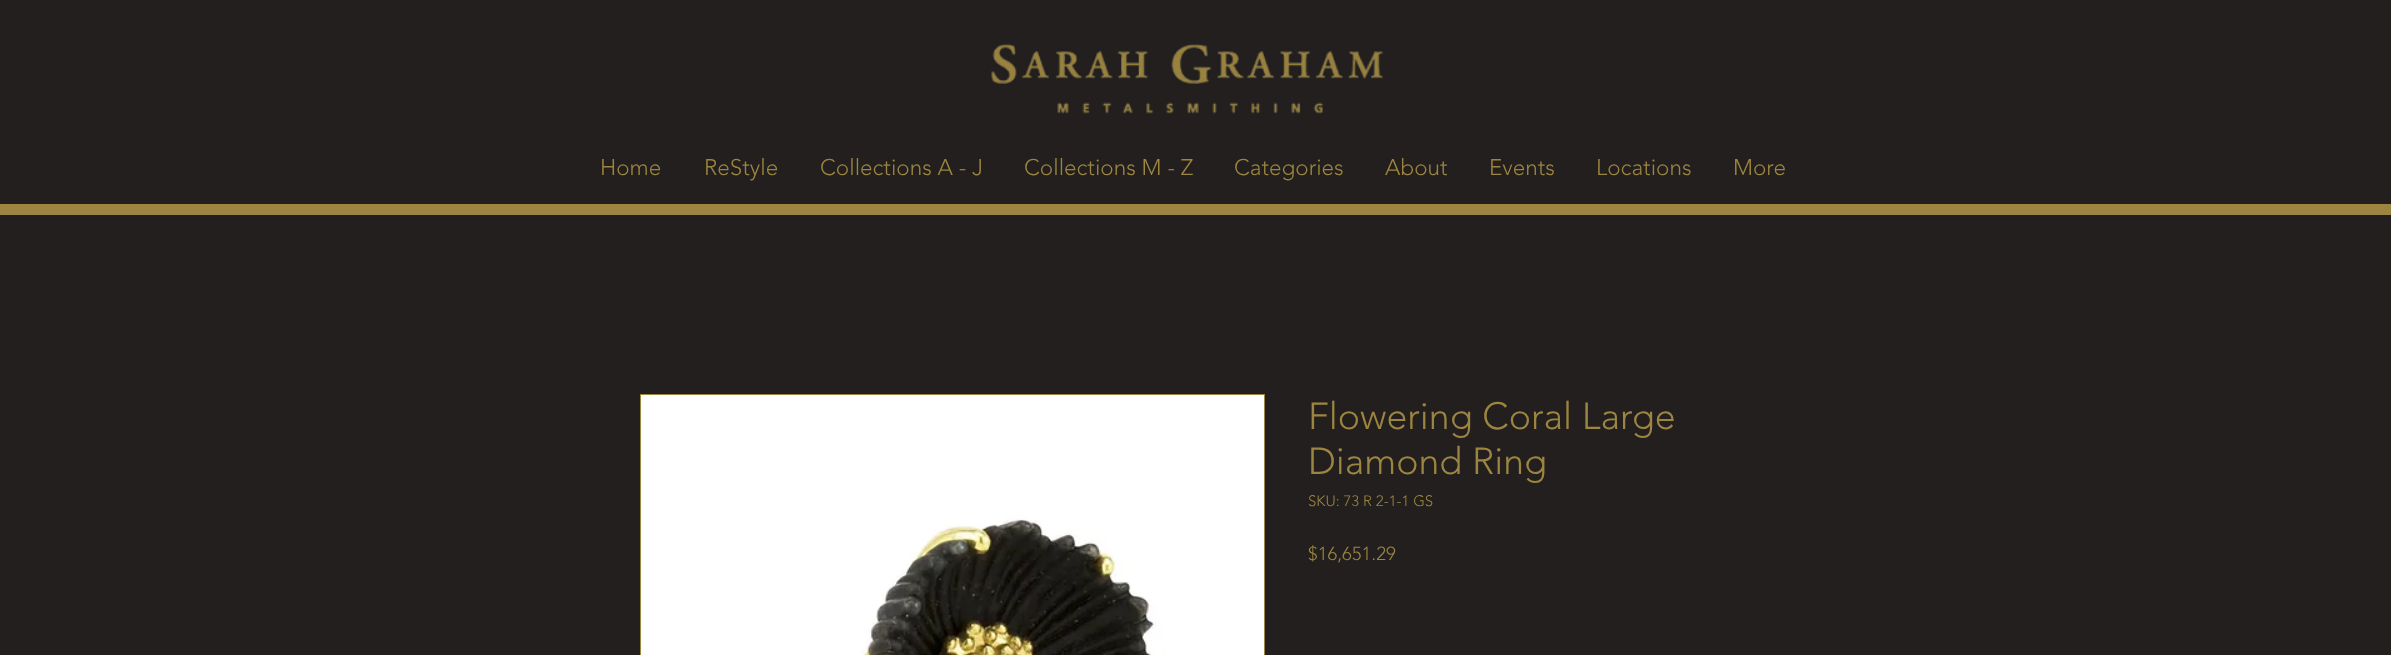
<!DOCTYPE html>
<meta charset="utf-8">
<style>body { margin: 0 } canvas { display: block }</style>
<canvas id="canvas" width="2391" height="655"></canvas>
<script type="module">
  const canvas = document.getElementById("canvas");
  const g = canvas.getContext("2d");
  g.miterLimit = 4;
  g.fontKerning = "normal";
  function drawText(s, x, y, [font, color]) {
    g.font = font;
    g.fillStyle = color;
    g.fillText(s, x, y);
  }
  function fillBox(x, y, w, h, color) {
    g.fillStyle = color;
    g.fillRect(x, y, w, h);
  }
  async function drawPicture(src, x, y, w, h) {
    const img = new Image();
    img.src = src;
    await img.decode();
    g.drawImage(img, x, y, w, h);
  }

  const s1 = ["300 22.5px 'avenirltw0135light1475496'", "#9C8540"];
  const s2 = ["300 37.5px 'avenirltw0135light1475496'", "#9C8540"];
  const s3 = ["300 15px 'avenirltw0135light1475496'", "#9C8540"];
  const s4 = ["300 18.75px 'avenirltw0135light1475496'", "#9C8540"];

  fillBox(0, 0, 2391, 655, "#221F1E");
  await drawPicture("pic1.png", 991, 43, 392, 71);
  fillBox(0, 204, 2391, 11, "#9C8540");
  drawText("Home", 600, 175, s1);
  drawText("ReStyle", 704, 175, s1);
  drawText("Collections A - J", 820, 175, s1);
  drawText("Collections M - Z", 1024, 175, s1);
  drawText("Categories", 1234, 175, s1);
  drawText("About", 1385, 175, s1);
  drawText("Events", 1489, 175, s1);
  drawText("Locations", 1596, 175, s1);
  drawText("More", 1733, 175, s1);
  g.strokeStyle = "#9C8540";
  g.strokeRect(640.5, 394.5, 624, 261);
  await drawPicture("pic2.png", 641, 395, 623, 260);
  drawText("Flowering Coral Large", 1308, 429, s2);
  drawText("Diamond Ring", 1308, 474, s2);
  drawText("SKU: 73 R 2-1-1 GS", 1308, 506, s3);
  drawText("$16,651.29", 1308, 560, s4);
</script>
